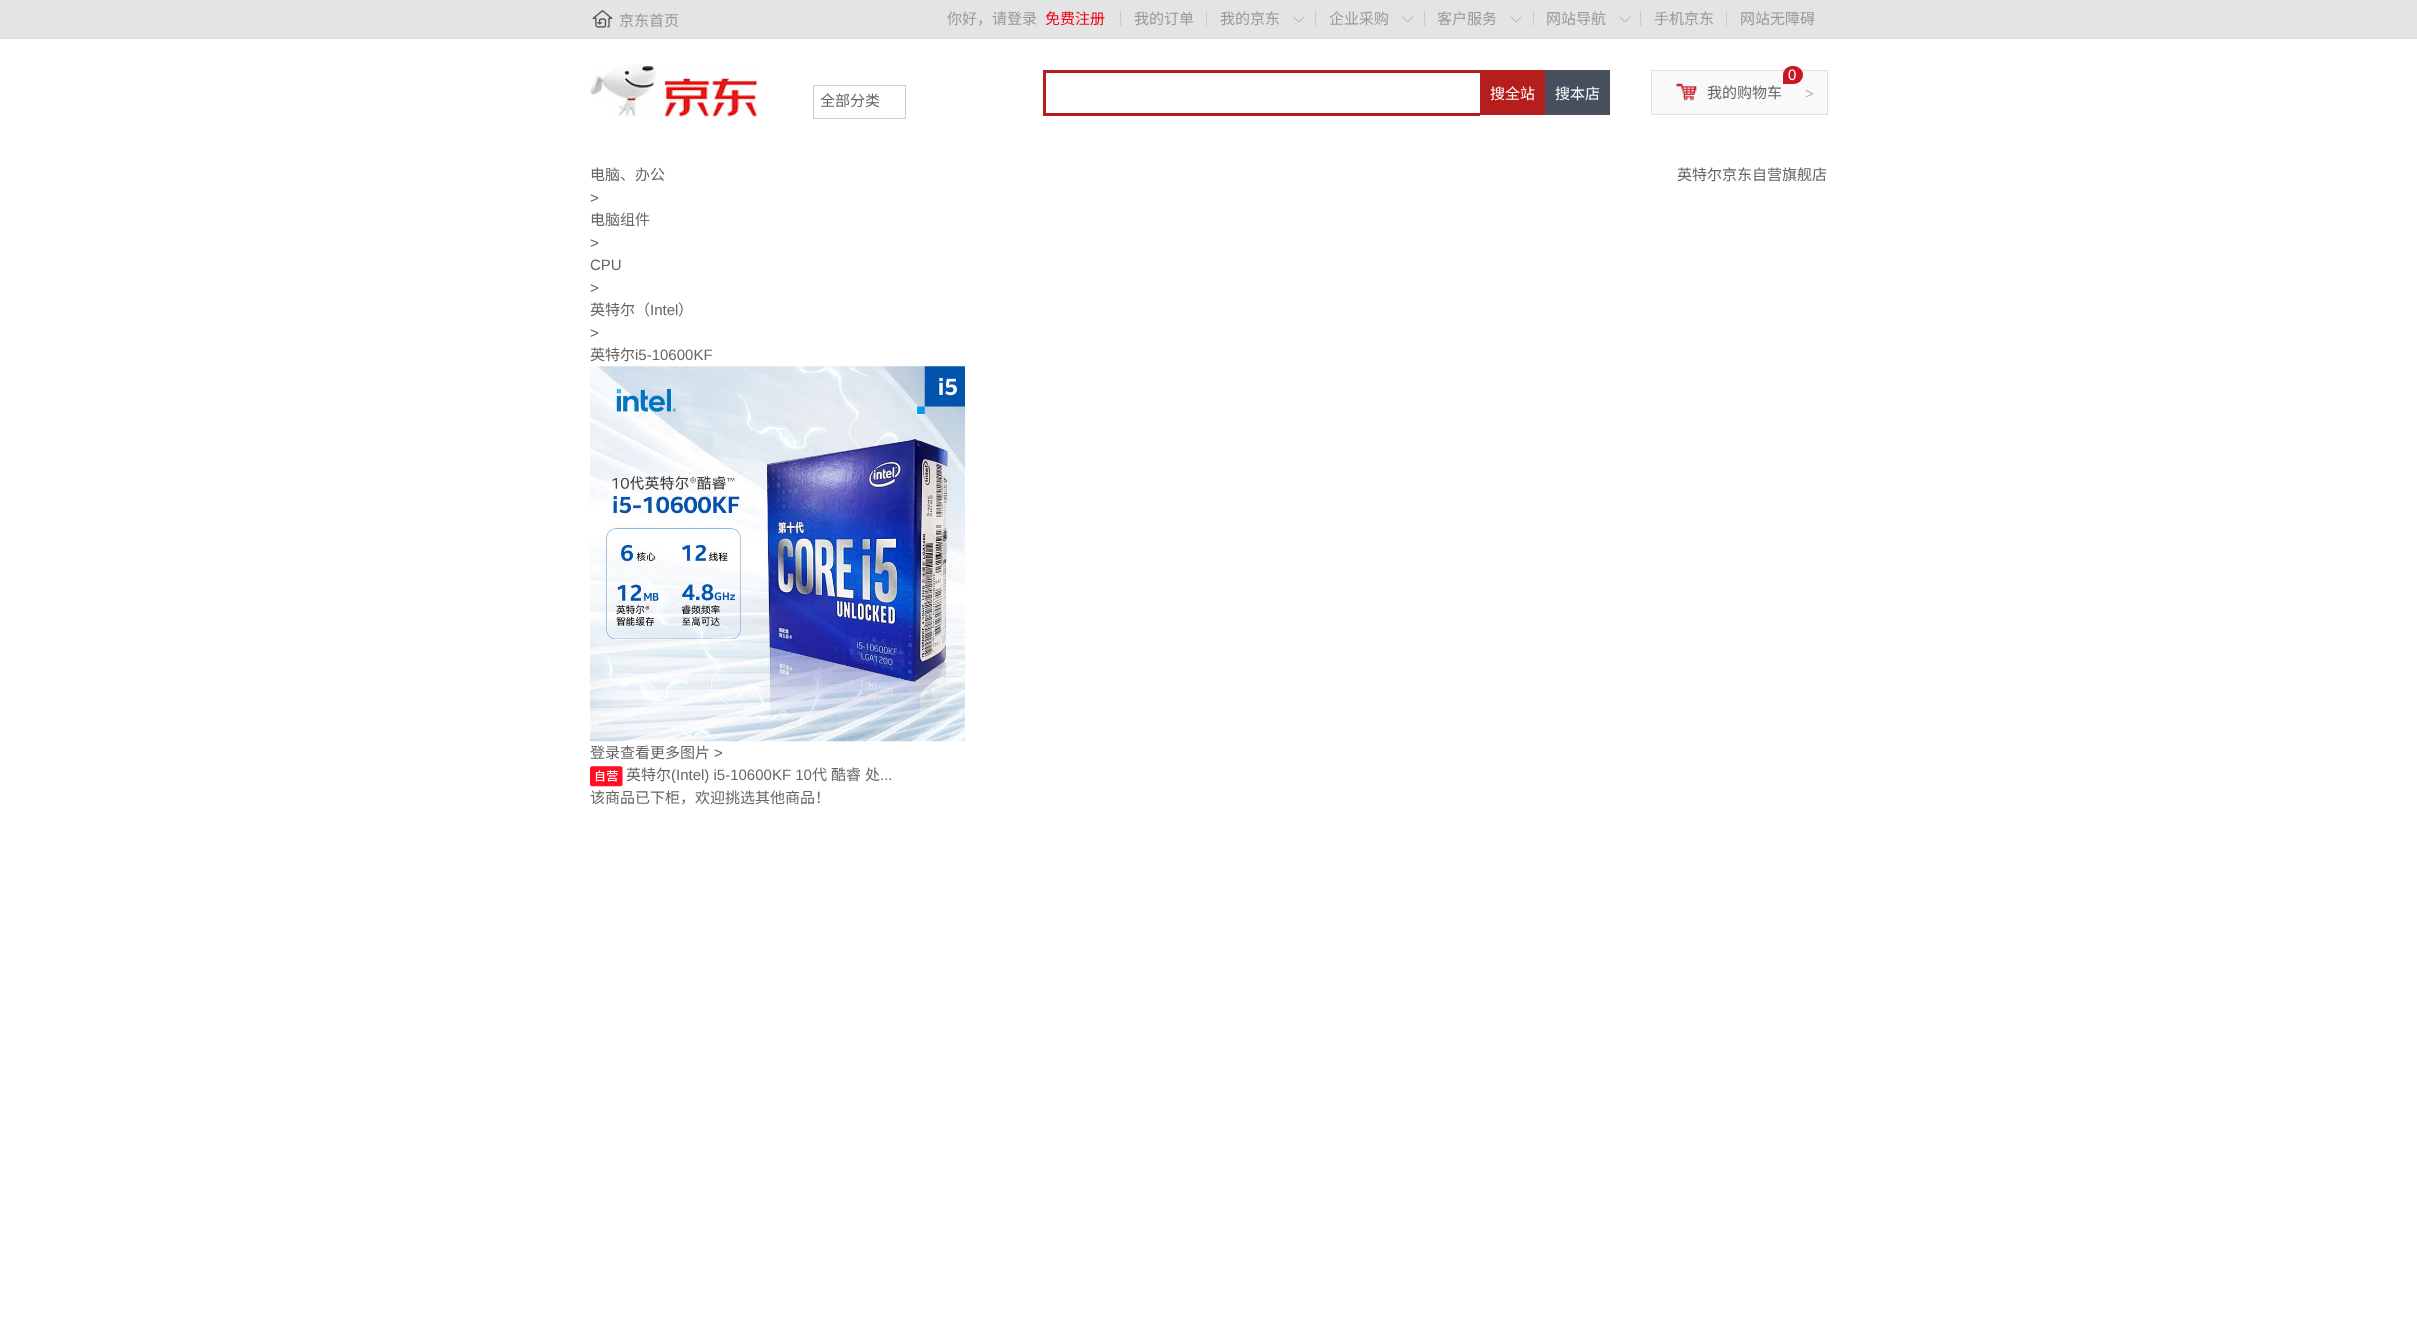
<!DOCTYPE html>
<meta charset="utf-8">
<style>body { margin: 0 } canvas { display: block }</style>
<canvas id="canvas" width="2417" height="1341"></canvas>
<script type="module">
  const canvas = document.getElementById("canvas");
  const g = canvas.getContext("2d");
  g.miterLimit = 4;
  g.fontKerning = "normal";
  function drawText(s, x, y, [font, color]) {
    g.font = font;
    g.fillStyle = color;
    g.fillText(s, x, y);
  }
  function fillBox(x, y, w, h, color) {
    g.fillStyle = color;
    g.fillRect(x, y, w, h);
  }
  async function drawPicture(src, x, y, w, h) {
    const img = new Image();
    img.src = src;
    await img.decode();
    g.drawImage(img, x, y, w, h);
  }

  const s1 = ["15px Noto Sans CJK SC", "#999999"];
  const s2 = ["15px Noto Sans CJK SC", "#F30213"];
  const s3 = ["15px Noto Sans CJK SC", "#666666"];
  const s4 = ["15px Noto Sans CJK SC", "#FFFFFF"];
  const s5 = ["15px Liberation Sans", "#FFFFFF"];
  const s6 = ["16px Liberation Serif", "#999999"];
  const s7 = ["15px Liberation Sans", "#666666"];

  fillBox(0, 0, 2417, 1341, "#FFFFFF");
  fillBox(0, 0, 2417, 38, "#E3E4E5");
  fillBox(0, 38, 2417, 1, "#DDDDDD");
  await drawPicture("pic1.png", 592, 10, 21, 18);
  drawText("京东首页", 619, 26, s1);
  drawText("你好，请登录", 947, 24, s1);
  drawText("免费注册", 1045, 24, s2);
  fillBox(1120, 11, 1, 15, "#CCCCCC");
  drawText("我的订单", 1134, 24, s1);
  fillBox(1206, 11, 1, 15, "#CCCCCC");
  drawText("我的京东", 1220, 24, s1);
  await drawPicture("pic2.png", 1293, 16, 12, 7);
  fillBox(1315, 11, 1, 15, "#CCCCCC");
  drawText("企业采购", 1329, 24, s1);
  await drawPicture("pic3.png", 1402, 16, 11, 7);
  fillBox(1424, 11, 1, 15, "#CCCCCC");
  drawText("客户服务", 1437, 24, s1);
  await drawPicture("pic4.png", 1510, 16, 12, 7);
  fillBox(1533, 11, 1, 15, "#CCCCCC");
  drawText("网站导航", 1546, 24, s1);
  await drawPicture("pic5.png", 1619, 16, 12, 6);
  fillBox(1640, 11, 1, 15, "#CCCCCC");
  drawText("手机京东", 1654, 24, s1);
  fillBox(1726, 11, 1, 15, "#CCCCCC");
  drawText("网站无障碍", 1740, 24, s1);
  await drawPicture("pic6.png", 590, 64, 168, 53);
  g.strokeStyle = "#CCCCCC";
  g.strokeRect(813.5, 85.5, 92, 33);
  drawText("全部分类", 820, 106, s3);
  fillBox(1043, 70, 437, 3, "#B61D1D");
  fillBox(1043, 113, 437, 3, "#B61D1D");
  fillBox(1043, 70, 3, 45, "#B61D1D");
  fillBox(1480, 70, 65, 45, "#B61D1D");
  drawText("搜全站", 1490, 99, s4);
  fillBox(1545, 70, 65, 45, "#474E5C");
  drawText("搜本店", 1555, 99, s4);
  g.fillStyle = "#F9F9F9";
  g.beginPath();
  g.rect(1651.5, 70.5, 176, 44);
  g.fill();
  g.strokeStyle = "#DFDFDF";
  g.stroke();
  g.fillStyle = "#C81623";
  g.beginPath();
  g.roundRect(1783, 66, 20, 18, [9, 9, 9, 0]);
  g.fill();
  drawText("0", 1788, 80, s5);
  await drawPicture("pic7.png", 1676, 83, 21, 18);
  drawText("我的购物车", 1707, 98, s3);
  drawText(">", 1805, 99, s6);
  drawText("电脑、办公", 590, 180, s3);
  drawText(">", 590, 203, s7);
  drawText("电脑组件", 590, 225, s3);
  drawText(">", 590, 248, s7);
  drawText("CPU", 590, 270, s7);
  drawText(">", 590, 293, s7);
  drawText("英特尔（", 590, 315, s3);
  drawText("Intel", 650, 315, s7);
  drawText("）", 678, 315, s3);
  drawText(">", 590, 338, s7);
  drawText("英特尔", 590, 360, s3);
  drawText("i5-10600KF", 635, 360, s7);
  drawText("英特尔京东自营旗舰店", 1677, 180, s3);
  await drawPicture("pic8.png", 590, 366, 375, 376);
  drawText("登录查看更多图片", 590, 758, s3);
  drawText(">", 714, 758, s7);
  await drawPicture("pic9.png", 590, 766, 33, 21);
  drawText("英特尔", 626, 780, s3);
  drawText("(Intel) i5-10600KF 10", 671, 780, s7);
  drawText("代", 812, 780, s3);
  drawText("酷睿", 831, 780, s3);
  drawText("处", 865, 780, s3);
  drawText("...", 880, 780, s7);
  drawText("该商品已下柜，欢迎挑选其他商品！", 590, 803, s3);
</script>
